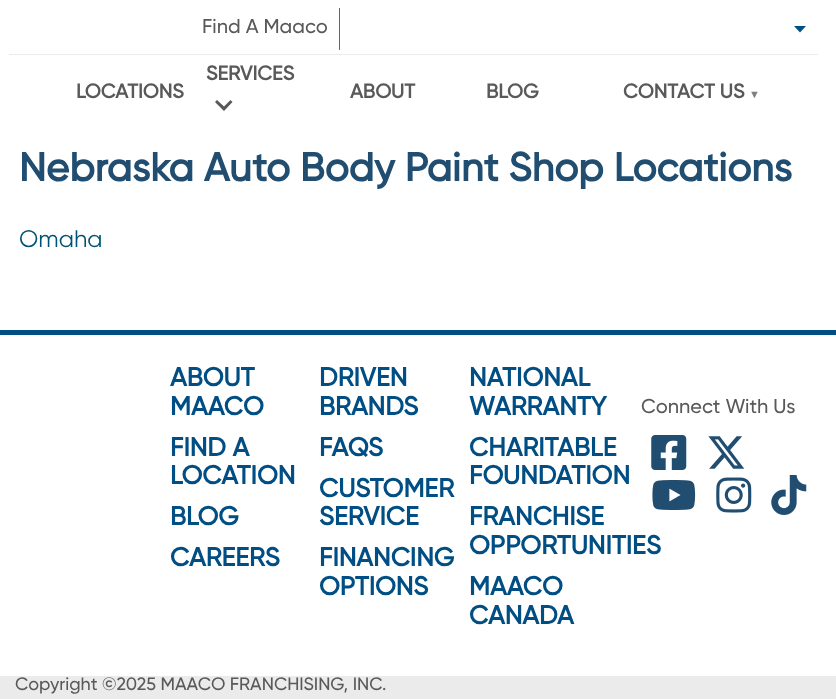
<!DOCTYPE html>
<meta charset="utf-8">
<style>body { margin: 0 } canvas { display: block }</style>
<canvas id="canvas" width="836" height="699"></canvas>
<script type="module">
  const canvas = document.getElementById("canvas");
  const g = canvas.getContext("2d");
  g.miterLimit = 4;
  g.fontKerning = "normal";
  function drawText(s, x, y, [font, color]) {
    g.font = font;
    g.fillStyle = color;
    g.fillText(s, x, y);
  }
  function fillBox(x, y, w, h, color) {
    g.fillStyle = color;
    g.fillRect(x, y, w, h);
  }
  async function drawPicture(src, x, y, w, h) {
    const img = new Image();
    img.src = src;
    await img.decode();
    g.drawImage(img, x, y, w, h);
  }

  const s1 = ["500 20px Gilroy", "#595959"];
  const s2 = ["bold 20px Gilroy", "#595959"];
  const s3 = ["11px Liberation Serif", "#808080"];
  const s4 = ["bold 40px Gilroy", "#214E70"];
  const s5 = ["24px Gilroy", "#005275"];
  const s6 = ["bold 26px Gilroy", "#004E83"];
  const s7 = ["500 18px Gilroy", "#595959"];

  fillBox(0, 0, 836, 699, "#FFFFFF");
  fillBox(339, 8, 1, 42, "#656565");
  drawText("Find A Maaco", 202, 33, s1);
  g.fillStyle = "#004E83";
  g.beginPath();
  g.moveTo(794, 26);
  g.lineTo(800, 32.5);
  g.lineTo(806, 26);
  g.closePath();
  g.fill();
  fillBox(9, 54, 809, 1, "#EBEBEB");
  drawText("SERVICES", 206, 80, s2);
  g.beginPath();
  g.moveTo(230.5, 100);
  g.lineTo(224, 106.5);
  g.lineTo(217, 100);
  g.lineTo(215, 102);
  g.lineTo(224, 111);
  g.lineTo(232.5, 102);
  g.closePath();
  g.fill();
  drawText("LOCATIONS", 76, 98, s2);
  drawText("ABOUT", 350, 98, s2);
  drawText("BLOG", 486, 98, s2);
  drawText("CONTACT US", 623, 98, s2);
  drawText("▼", 749, 98, s3);
  drawText("Nebraska Auto Body Paint Shop Locations", 19, 181, s4);
  drawText("Omaha", 19, 247, s5);
  fillBox(0, 330, 836, 5, "#004E83");
  drawText("ABOUT", 170, 386, s6);
  drawText("MAACO", 170, 415, s6);
  drawText("FIND A", 170, 456, s6);
  drawText("LOCATION", 170, 484, s6);
  drawText("BLOG", 170, 525, s6);
  drawText("CAREERS", 170, 566, s6);
  drawText("DRIVEN", 319, 386, s6);
  drawText("BRANDS", 319, 415, s6);
  drawText("FAQS", 319, 456, s6);
  drawText("CUSTOMER", 319, 497, s6);
  drawText("SERVICE", 319, 525, s6);
  drawText("FINANCING", 319, 566, s6);
  drawText("OPTIONS", 319, 595, s6);
  drawText("NATIONAL", 469, 386, s6);
  drawText("WARRANTY", 469, 415, s6);
  drawText("CHARITABLE", 469, 456, s6);
  drawText("FOUNDATION", 469, 484, s6);
  drawText("FRANCHISE", 469, 525, s6);
  drawText("OPPORTUNITIES", 469, 554, s6);
  drawText("MAACO", 469, 595, s6);
  drawText("CANADA", 469, 624, s6);
  drawText("Connect With Us", 641, 413, s1);
  await drawPicture("pic1.png", 651, 435, 36, 35);
  await drawPicture("pic2.png", 708, 436, 37, 33);
  await drawPicture("pic3.png", 652, 480, 44, 30);
  await drawPicture("pic4.png", 716, 477, 36, 36);
  await drawPicture("pic5.png", 771, 475, 36, 40);
  fillBox(0, 676, 836, 23, "#EBEBEB");
  drawText("Copyright ©2025 MAACO FRANCHISING, INC.", 15, 690, s7);
</script>
